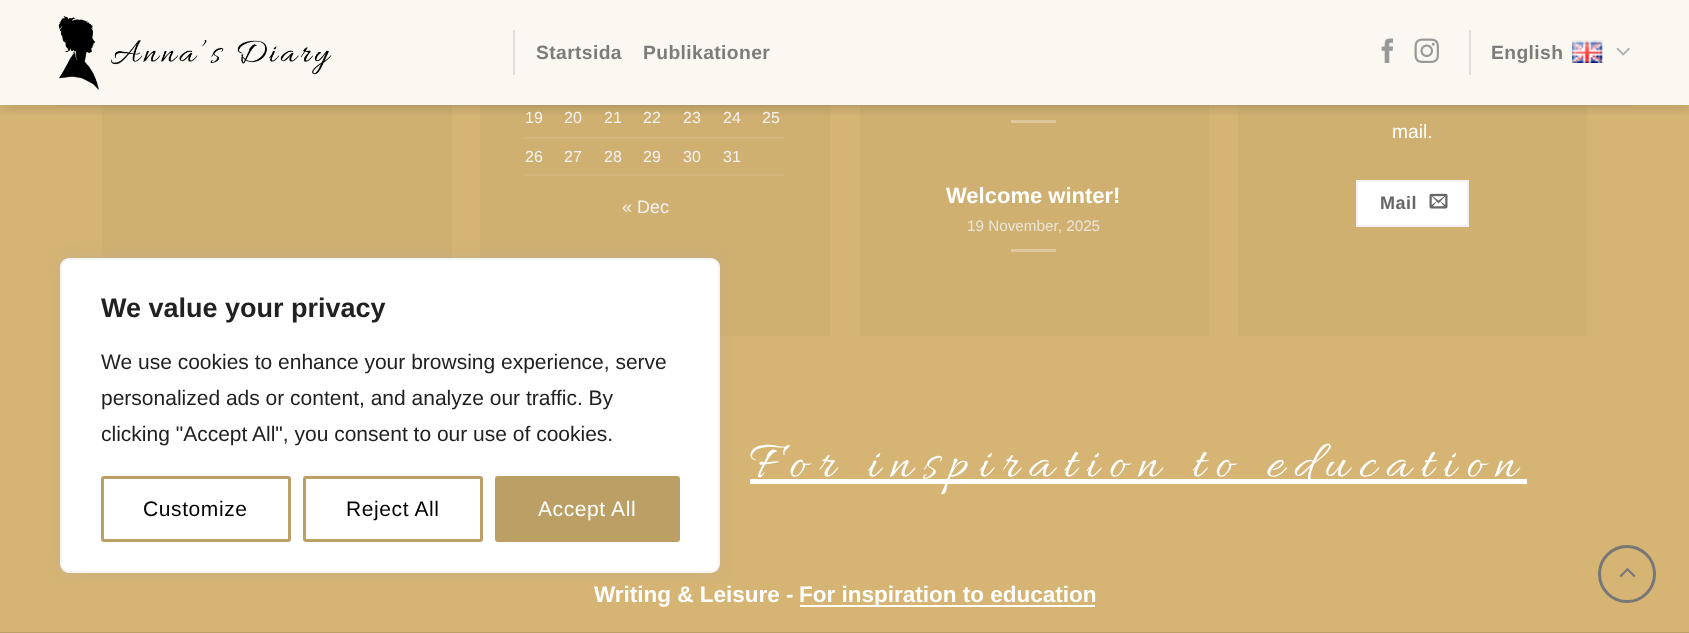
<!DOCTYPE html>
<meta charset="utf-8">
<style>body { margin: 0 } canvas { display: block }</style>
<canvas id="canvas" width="1689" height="633"></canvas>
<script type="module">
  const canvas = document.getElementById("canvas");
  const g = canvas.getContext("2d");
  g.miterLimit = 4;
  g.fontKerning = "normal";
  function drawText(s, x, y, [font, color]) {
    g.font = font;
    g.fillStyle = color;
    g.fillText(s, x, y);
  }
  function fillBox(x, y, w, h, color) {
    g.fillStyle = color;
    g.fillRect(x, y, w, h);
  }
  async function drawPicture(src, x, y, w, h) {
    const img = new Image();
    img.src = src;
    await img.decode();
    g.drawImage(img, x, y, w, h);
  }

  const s1 = ["bold 27px Liberation Sans", "#212121"];
  const s2 = ["21px Liberation Sans", "#212121"];
  const s3 = ["21px Liberation Sans", "#000000"];
  const s4 = ["21px Liberation Sans", "#FFFFFF"];
  const s5 = ["bold 19.25px Liberation Sans", "#7C7C7B"];
  const s6 = ["16px Liberation Sans", "#F1F1F1"];
  const s7 = ["18px Liberation Sans", "#F1F1F1"];
  const s8 = ["bold 22px Liberation Sans", "#FFFFFF"];
  const s9 = ["15.25px Liberation Sans", "#EAE4D7"];
  const s10 = ["19.25px Liberation Sans", "#FFFFFF"];
  const s11 = ["bold 18px Liberation Sans", "#666666"];
  const s12 = ["53.6px Allura", "#FFFFFF"];
  const s13 = ["bold 22.5px Liberation Sans", "#FFFFFF"];

  fillBox(0, 0, 1689, 633, "#D5B474");
  fillBox(102, 105, 350, 153, "#D0B071");
  fillBox(480, 105, 350, 231, "#D0B071");
  g.fillStyle = "rgba(172, 171, 171, 0.3)";
  g.filter = "blur(7.5px)";
  g.beginPath();
  g.roundRect(60, 257, 660, 315, 9);
  g.fill();
  g.filter = "none";
  g.fillStyle = "#FFFFFF";
  g.beginPath();
  g.roundRect(61, 259, 658, 313, 8);
  g.fill();
  g.strokeStyle = "#F4F4F4";
  g.lineWidth = 2;
  g.stroke();
  drawText("We value your privacy", 101, 317, s1);
  drawText("We use cookies to enhance your browsing experience, serve", 101, 369, s2);
  drawText("personalized ads or content, and analyze our traffic. By", 101, 405, s2);
  drawText("clicking \"Accept All\", you consent to our use of cookies.", 101, 441, s2);
  g.beginPath();
  g.roundRect(102.5, 477.5, 187, 63, 1.5);
  g.strokeStyle = "#BC9F65";
  g.lineWidth = 3;
  g.stroke();
  g.letterSpacing = "0.6px";
  drawText("Customize", 143, 516, s3);
  g.beginPath();
  g.roundRect(304.5, 477.5, 177, 63, 1.5);
  g.stroke();
  drawText("Reject All", 346, 516, s3);
  g.fillStyle = "#BC9F65";
  g.beginPath();
  g.roundRect(496.5, 477.5, 182, 63, 1.5);
  g.fill();
  g.stroke();
  drawText("Accept All", 538, 516, s4);
  fillBox(0, 0, 1689, 105, "#FBF8F1");
  fillBox(860, 105, 349, 231, "#D0B071");
  fillBox(1011, 120, 45, 3, "#DEC89C");
  fillBox(1238, 105, 349, 231, "#D0B071");
  g.save();
  g.beginPath();
  g.rect(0, 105, 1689, 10);
  g.clip();
  g.fillStyle = "rgba(0, 0, 0, 0.15)";
  g.filter = "blur(7.5px)";
  g.beginPath();
  g.rect(2, 2, 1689, 105);
  g.fill();
  g.filter = "none";
  g.restore();
  await drawPicture("pic1.png", 58, 15, 274, 75);
  fillBox(513, 30, 2, 45, "#E1DED9");
  g.letterSpacing = "0.4px";
  drawText("Startsida", 536, 59, s5);
  drawText("Publikationer", 643, 59, s5);
  await drawPicture("pic2.png", 1381, 38, 13, 25);
  await drawPicture("pic3.png", 1414, 38, 25, 25);
  fillBox(1469, 30, 2, 45, "#E1DED9");
  drawText("English", 1491, 59, s5);
  await drawPicture("pic4.png", 1572, 40, 31, 23);
  await drawPicture("pic5.png", 1616, 47, 14, 9);
  fillBox(57, 105, 1575, 2, "rgba(119, 119, 119, 0.1)");
  fillBox(525, 137, 260, 2, "#D4B67C");
  g.letterSpacing = "0px";
  drawText("19", 525, 123, s6);
  drawText("20", 564, 123, s6);
  drawText("21", 604, 123, s6);
  drawText("22", 643, 123, s6);
  drawText("23", 683, 123, s6);
  drawText("24", 723, 123, s6);
  drawText("25", 762, 123, s6);
  fillBox(525, 174, 260, 2, "#D4B67C");
  drawText("26", 525, 162, s6);
  drawText("27", 564, 162, s6);
  drawText("28", 604, 162, s6);
  drawText("29", 643, 162, s6);
  drawText("30", 683, 162, s6);
  drawText("31", 723, 162, s6);
  drawText("« Dec", 622, 213, s7);
  drawText("Welcome winter!", 946, 203, s8);
  drawText("19 November, 2025", 967, 231, s9);
  fillBox(1011, 249, 45, 3, "#DEC89C");
  drawText("mail.", 1392, 138, s10);
  g.beginPath();
  g.rect(1357, 181, 111, 45);
  g.fill();
  g.strokeStyle = "#F2F2F2";
  g.lineWidth = 2;
  g.stroke();
  g.letterSpacing = "0.5px";
  drawText("Mail", 1380, 209, s11);
  await drawPicture("pic6.png", 1429, 193, 19, 16);
  fillBox(750, 479, 777, 5, "#FFFFFF");
  g.letterSpacing = "10.5px";
  drawText("For inspiration to education", 750, 476, s12);
  g.letterSpacing = "0px";
  drawText("Writing & Leisure -", 594, 602, s13);
  fillBox(800, 605, 295, 2, "#FFFFFF");
  drawText("For inspiration to education", 799, 602, s13);
  g.beginPath();
  g.arc(1627, 574, 27.5, 0, Math.PI * 2);
  g.strokeStyle = "#777777";
  g.lineWidth = 3;
  g.stroke();
  await drawPicture("pic7.png", 1619, 568, 17, 9);
  fillBox(0, 632, 1689, 1, "#BC9F65");
</script>
